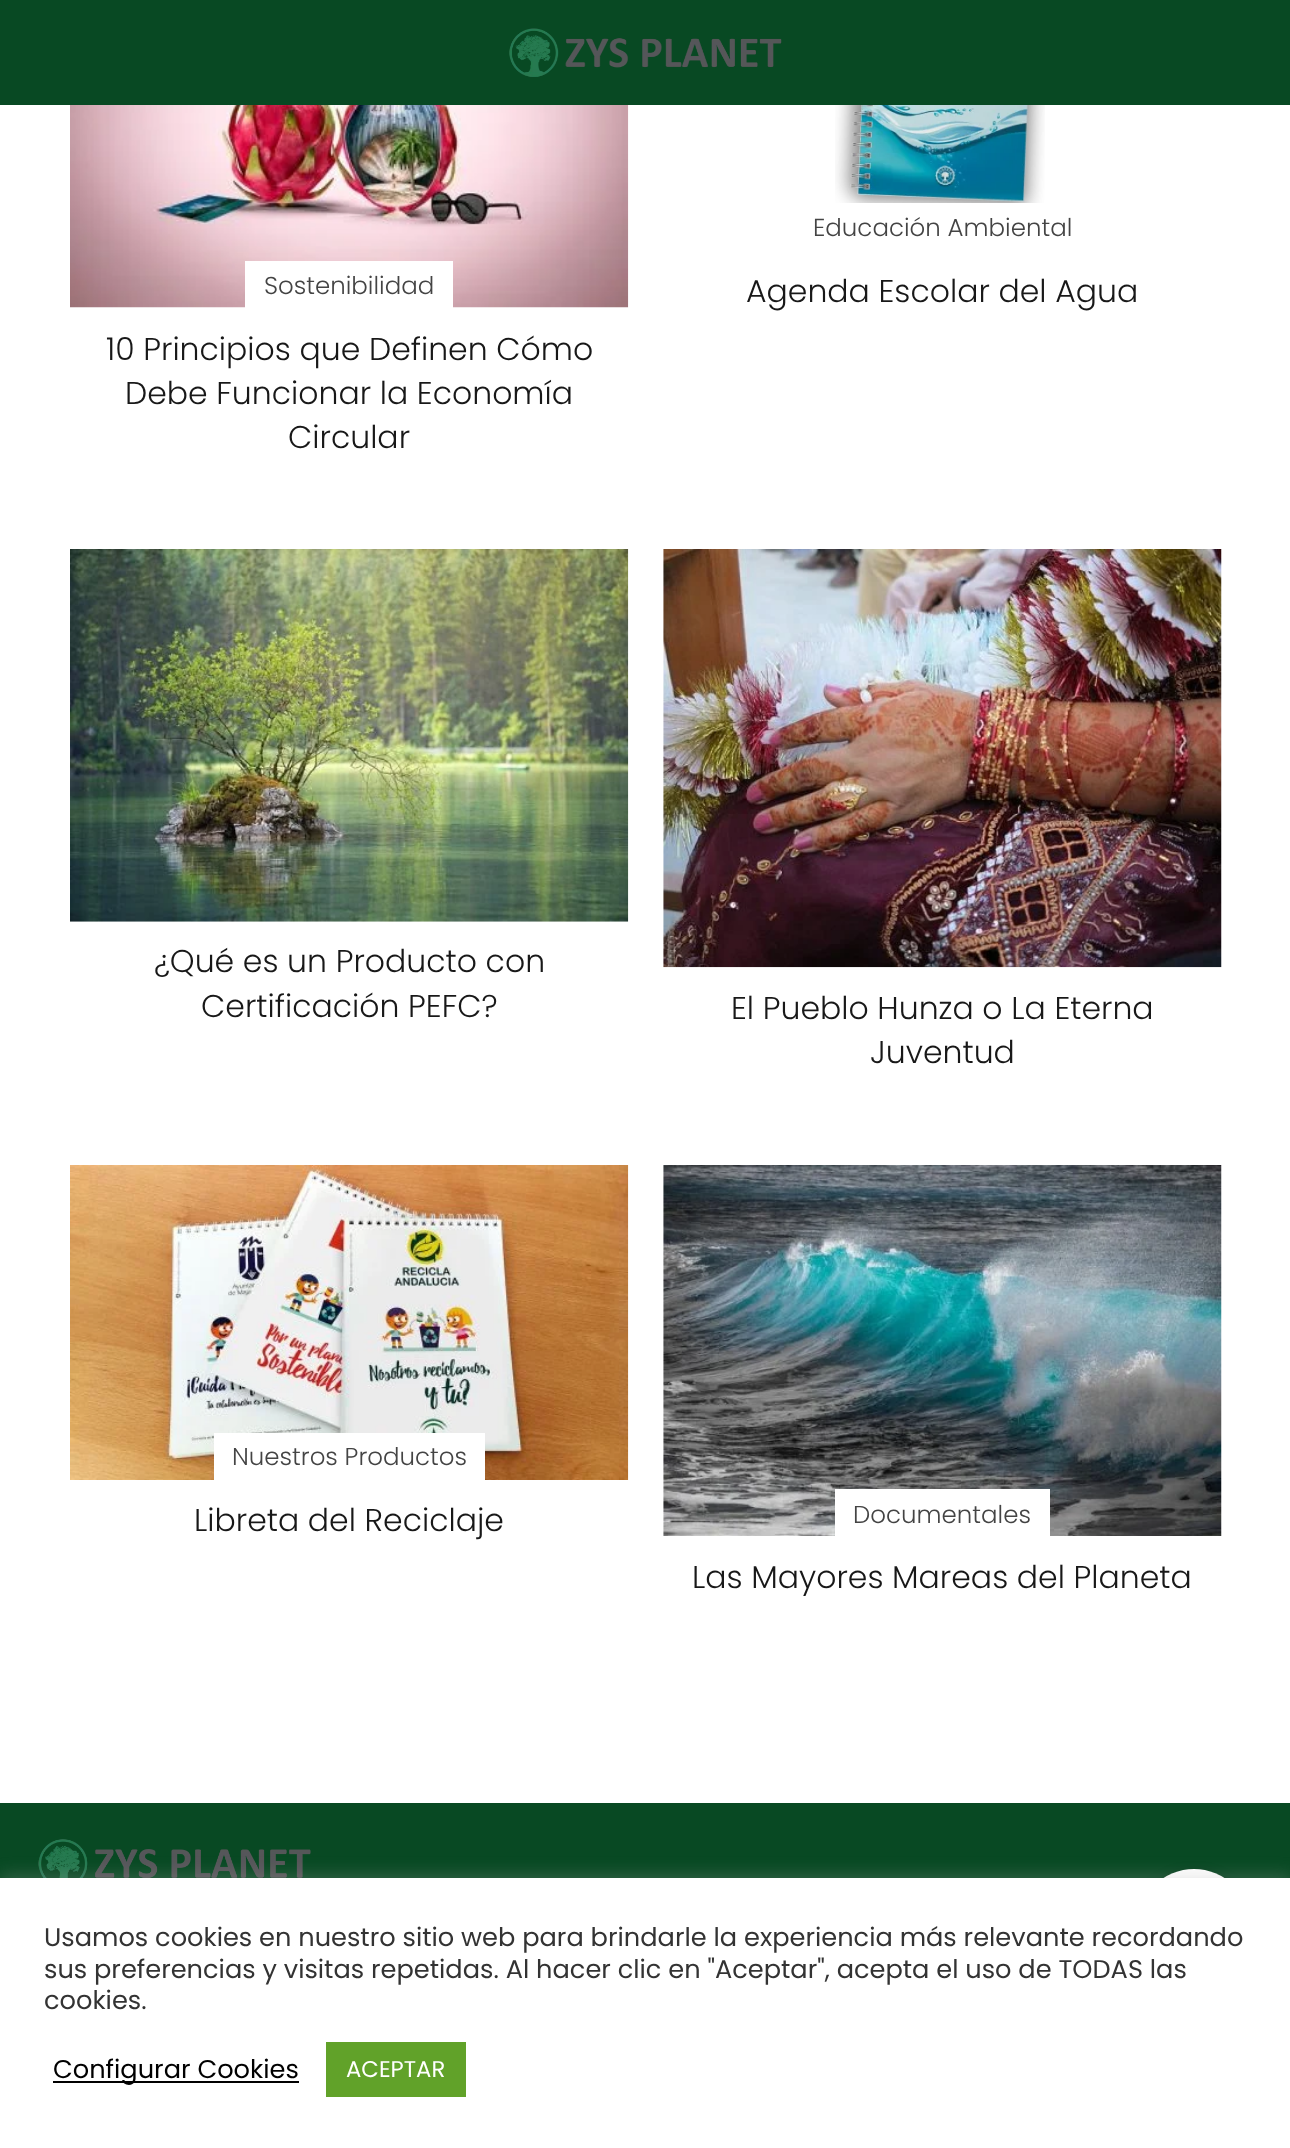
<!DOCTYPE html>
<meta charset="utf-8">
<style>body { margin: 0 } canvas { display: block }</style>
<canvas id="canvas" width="1290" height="2148"></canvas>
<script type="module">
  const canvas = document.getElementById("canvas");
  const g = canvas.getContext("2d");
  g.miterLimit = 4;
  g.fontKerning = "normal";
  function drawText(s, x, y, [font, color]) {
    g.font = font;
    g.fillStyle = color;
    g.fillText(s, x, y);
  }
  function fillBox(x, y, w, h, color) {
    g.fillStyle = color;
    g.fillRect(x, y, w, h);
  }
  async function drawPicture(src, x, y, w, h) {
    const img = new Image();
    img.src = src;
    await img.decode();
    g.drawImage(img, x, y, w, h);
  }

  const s1 = ["300 24.5px Poppins", "#444444"];
  const s2 = ["300 31.5px Poppins", "#181818"];
  const s3 = ["25.65px Poppins", "#333333"];
  const s4 = ["25.65px Poppins", "#000000"];
  const s5 = ["22.75px Poppins", "#FFFFFF"];

  fillBox(0, 0, 1290, 2148, "#FFFFFF");
  fillBox(0, 0, 1290, 105, "#084923");
  await drawPicture("pic1.png", 509, 28, 273, 49);
  fillBox(0, 1803, 1290, 75, "#084923");
  g.fillStyle = "rgba(0, 0, 0, 0.5)";
  g.filter = "blur(7px)";
  g.beginPath();
  g.roundRect(1138, 1876, 112, 112, 56);
  g.fill();
  g.filter = "none";
  g.fillStyle = "#FFFFFF";
  g.beginPath();
  g.arc(1194, 1925, 56, 0, Math.PI * 2);
  g.fill();
  await drawPicture("pic2.png", 835, 105, 210, 98);
  drawText("Educación Ambiental", 813, 236, s1);
  drawText("Agenda Escolar del Agua", 746, 302, s2);
  await drawPicture("pic3.png", 70, 105, 559, 203);
  fillBox(245, 261, 208, 47, "#FFFFFF");
  drawText("Sostenibilidad", 264, 294, s1);
  drawText("10 Principios que Definen Cómo", 106, 360, s2);
  drawText("Debe Funcionar la Economía", 125, 404, s2);
  drawText("Circular", 288, 448, s2);
  await drawPicture("pic4.png", 70, 549, 559, 373);
  drawText("¿Qué es un Producto con", 154, 972, s2);
  drawText("Certificación PEFC?", 201, 1017, s2);
  await drawPicture("pic5.png", 663, 549, 559, 419);
  drawText("El Pueblo Hunza o La Eterna", 731, 1019, s2);
  drawText("Juventud", 870, 1063, s2);
  await drawPicture("pic6.png", 70, 1165, 559, 315);
  fillBox(214, 1433, 271, 47, "#FFFFFF");
  drawText("Nuestros Productos", 232, 1465, s1);
  drawText("Libreta del Reciclaje", 194, 1531, s2);
  await drawPicture("pic7.png", 663, 1165, 559, 371);
  fillBox(835, 1489, 215, 47, "#FFFFFF");
  drawText("Documentales", 853, 1523, s1);
  drawText("Las Mayores Mareas del Planeta", 692, 1588, s2);
  await drawPicture("pic8.png", 38, 1839, 273, 39);
  g.fillStyle = "rgba(172, 171, 171, 0.3)";
  g.filter = "blur(9px)";
  g.beginPath();
  g.rect(0, 1876, 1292, 271);
  g.fill();
  g.filter = "none";
  fillBox(0, 1878, 1290, 270, "#FFFFFF");
  drawText("Usamos cookies en nuestro sitio web para brindarle la experiencia más relevante recordando", 44, 1946, s3);
  drawText("sus preferencias y visitas repetidas. Al hacer clic en \"Aceptar\", acepta el uso de TODAS las", 44, 1978, s3);
  drawText("cookies.", 44, 2009, s3);
  fillBox(53, 2081, 246, 2, "#000000");
  drawText("Configurar Cookies", 53, 2078, s4);
  fillBox(326, 2042, 140, 55, "#61A229");
  drawText("ACEPTAR", 346, 2077, s5);
</script>
